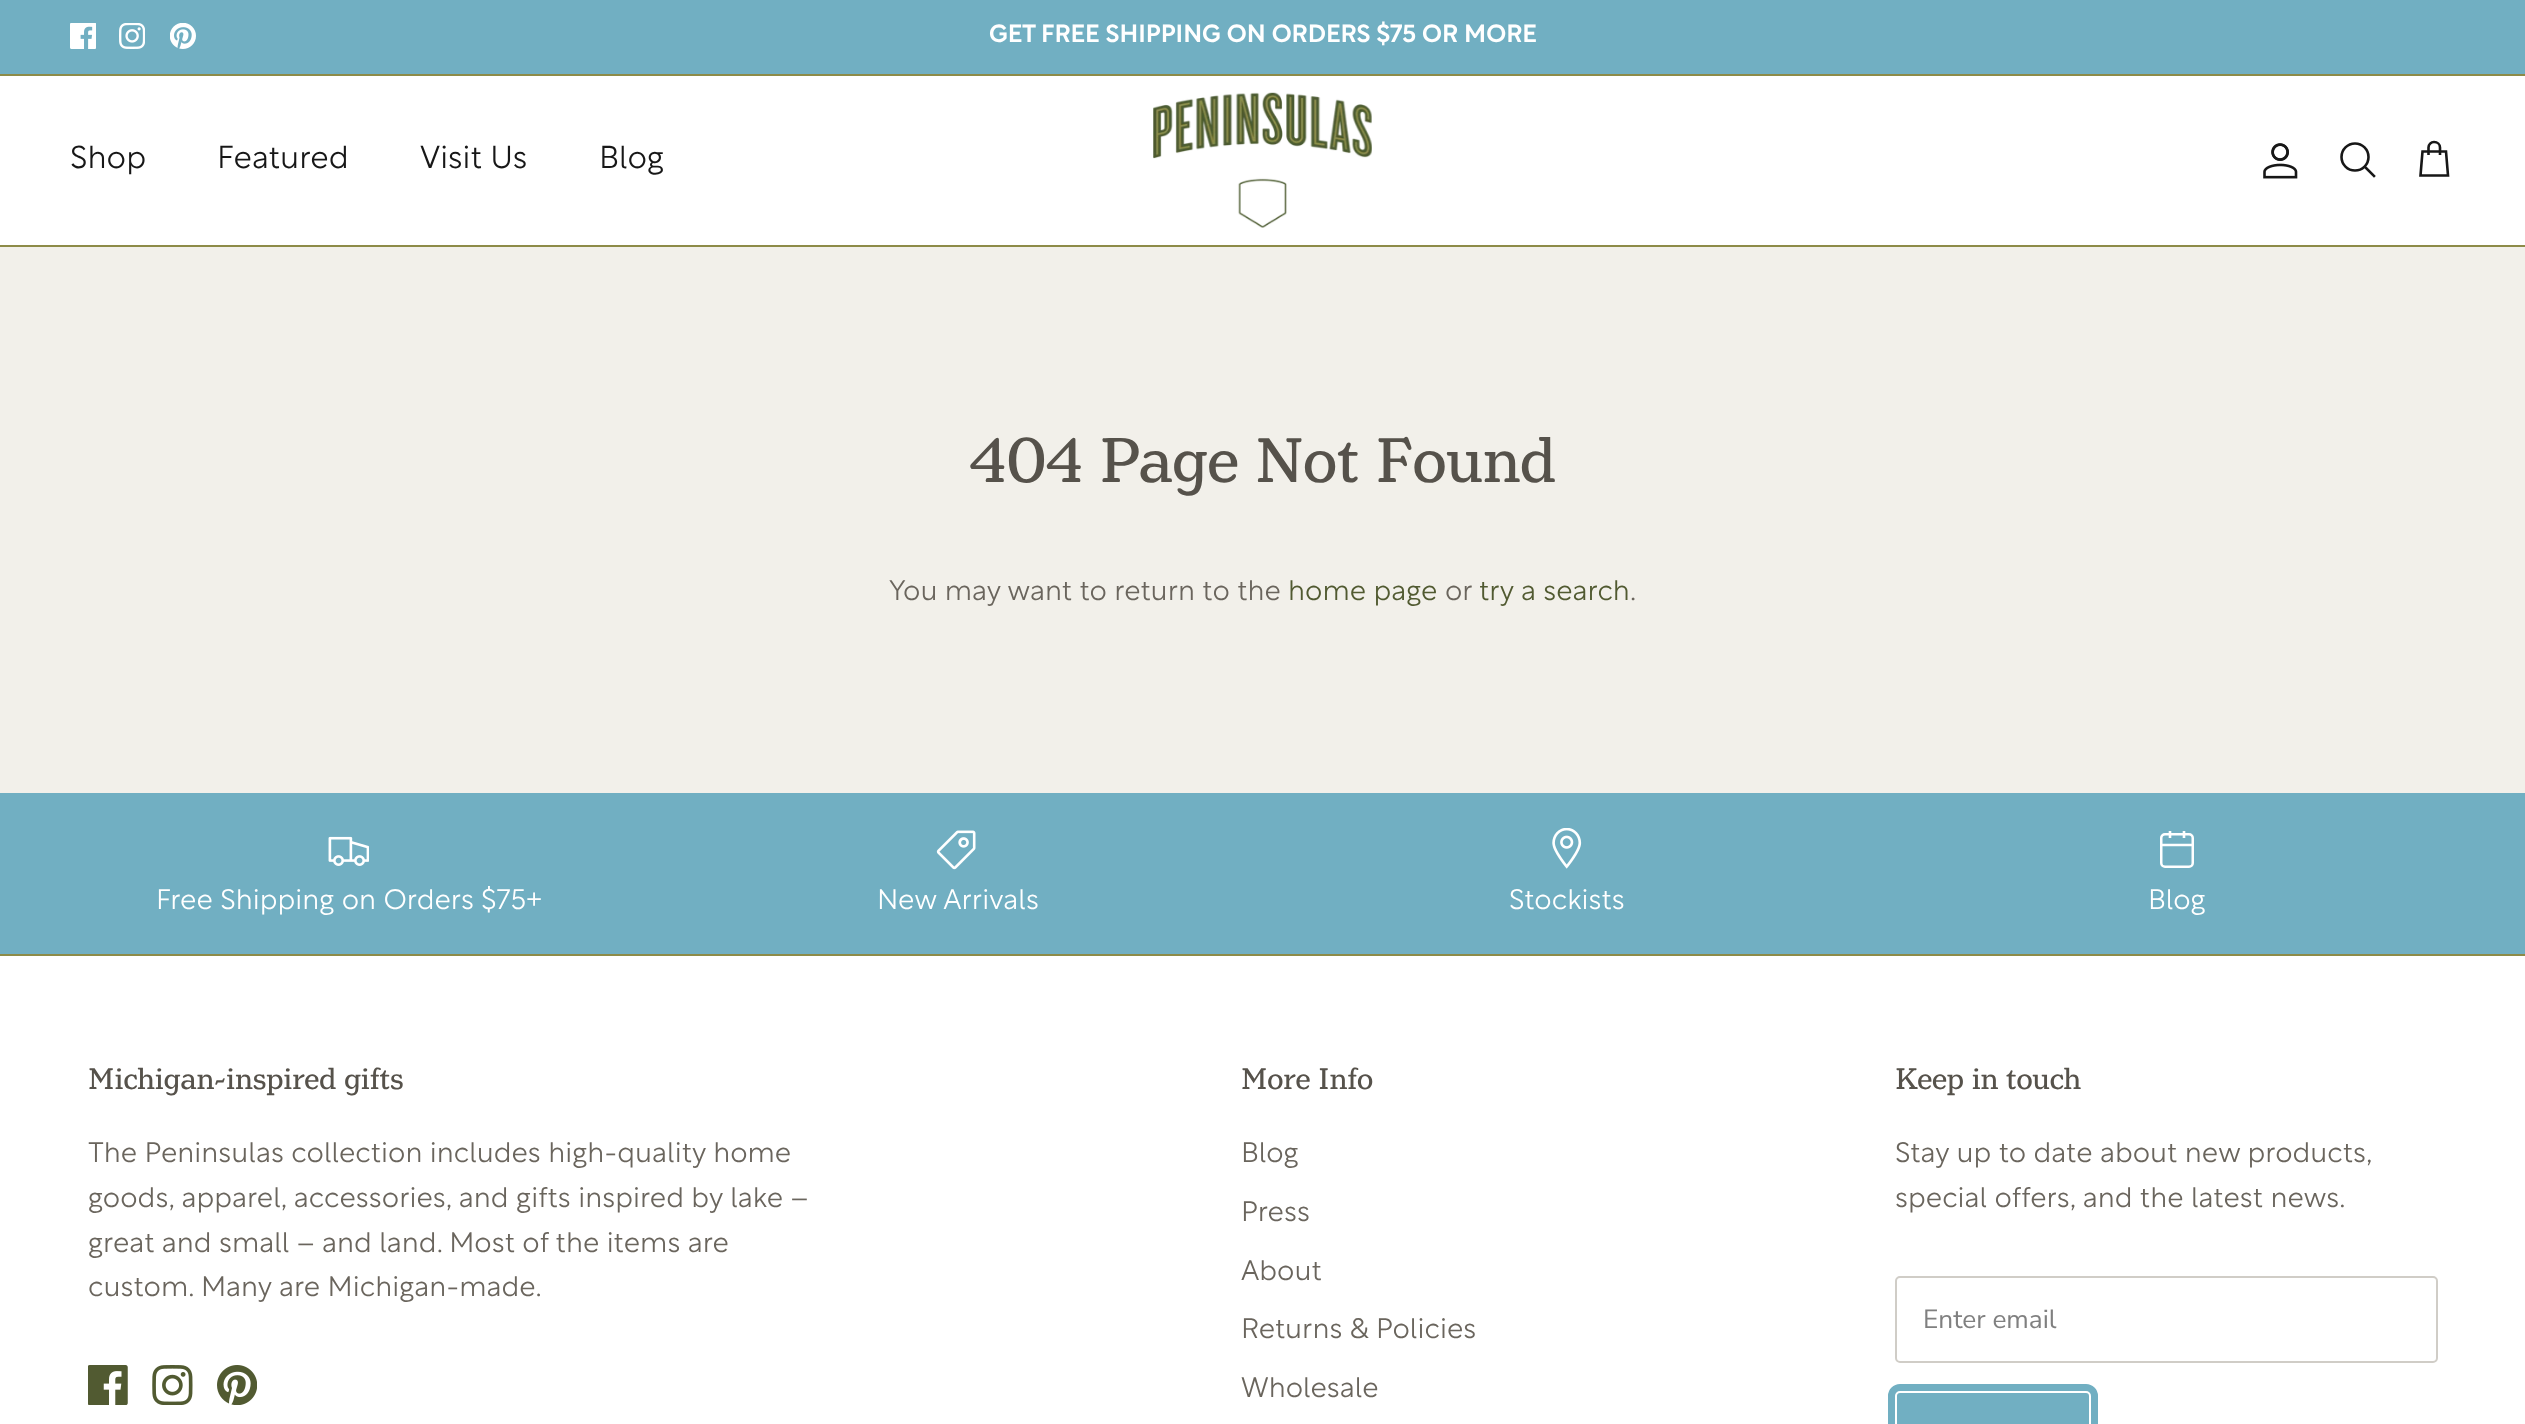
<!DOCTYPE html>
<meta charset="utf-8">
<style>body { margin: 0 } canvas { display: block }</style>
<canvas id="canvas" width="2525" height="1424"></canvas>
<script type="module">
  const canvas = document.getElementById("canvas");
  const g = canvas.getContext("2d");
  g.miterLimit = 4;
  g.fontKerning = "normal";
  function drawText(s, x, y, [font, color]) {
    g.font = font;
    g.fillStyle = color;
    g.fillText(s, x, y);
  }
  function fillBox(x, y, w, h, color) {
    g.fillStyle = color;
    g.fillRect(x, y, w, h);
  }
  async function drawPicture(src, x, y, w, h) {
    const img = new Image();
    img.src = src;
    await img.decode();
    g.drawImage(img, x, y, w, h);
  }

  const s1 = ["500 24.5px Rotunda", "#FFFFFF"];
  const s2 = ["300 31.5px Rotunda", "#171717"];
  const s3 = ["66.5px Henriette", "#56524B"];
  const s4 = ["300 28px Rotunda", "#6A655D"];
  const s5 = ["300 28px Rotunda", "#515A31"];
  const s6 = ["300 28px Rotunda", "#FFFFFF"];
  const s7 = ["31.5px Henriette", "#56524B"];
  const s8 = ["26.25px Nunito Sans", "#808080"];

  fillBox(0, 0, 2525, 1424, "#F2F0EA");
  fillBox(0, 0, 2525, 74, "#71AFC2");
  await drawPicture("pic1.png", 70, 23, 26, 26);
  await drawPicture("pic2.png", 119, 23, 26, 26);
  await drawPicture("pic3.png", 170, 23, 26, 26);
  drawText("GET FREE SHIPPING ON ORDERS $75 OR MORE", 989, 42, s1);
  fillBox(0, 76, 2525, 169, "#FFFFFF");
  fillBox(0, 74, 2525, 2, "#8D8B48");
  fillBox(0, 245, 2525, 2, "#8D8B48");
  drawText("Shop", 70, 168, s2);
  drawText("Featured", 217, 168, s2);
  drawText("Visit Us", 420, 168, s2);
  drawText("Blog", 599, 168, s2);
  await drawPicture("pic4.png", 1153, 92, 219, 136);
  await drawPicture("pic5.png", 2263, 143, 35, 36);
  g.beginPath();
  g.arc(2355, 157, 13.5, 0, Math.PI * 2);
  g.strokeStyle = "#171717";
  g.lineWidth = 2.6;
  g.stroke();
  g.beginPath();
  g.moveTo(2366, 168);
  g.lineTo(2374, 176);
  g.lineCap = "square";
  g.stroke();
  g.beginPath();
  g.moveTo(2440, 155);
  g.lineTo(2440, 147.5);
  g.bezierCurveTo(2440, 144.5, 2437.5, 142, 2434, 142);
  g.bezierCurveTo(2431, 142, 2428.5, 144.5, 2428.5, 147.5);
  g.lineTo(2428.5, 155);
  g.moveTo(2422.5, 151.5);
  g.lineTo(2446, 151.5);
  g.lineTo(2448, 175.5);
  g.lineTo(2420.5, 175.5);
  g.closePath();
  g.lineCap = "butt";
  g.stroke();
  drawText("404 Page Not Found", 970, 482, s3);
  drawText("You may want to return to the", 889, 600, s4);
  drawText("home page", 1288, 600, s5);
  drawText("or", 1445, 600, s4);
  drawText("try a search", 1479, 600, s5);
  drawText(".", 1630, 600, s4);
  fillBox(0, 956, 2525, 468, "#FFFFFF");
  fillBox(0, 793, 2525, 161, "#71AFC2");
  await drawPicture("pic6.png", 328, 836, 41, 30);
  drawText("Free Shipping on Orders $75+", 156, 909, s6);
  await drawPicture("pic7.png", 936, 830, 40, 40);
  drawText("New Arrivals", 877, 909, s6);
  await drawPicture("pic8.png", 1552, 828, 30, 41);
  drawText("Stockists", 1509, 909, s6);
  g.beginPath();
  g.roundRect(2161.25, 834.25, 31.5, 32.5, 3.75);
  g.strokeStyle = "#FFFFFF";
  g.lineWidth = 2.5;
  g.stroke();
  g.beginPath();
  g.moveTo(2184, 831);
  g.lineTo(2184, 838);
  g.moveTo(2170, 831);
  g.lineTo(2170, 838);
  g.moveTo(2161, 845);
  g.lineTo(2193, 845);
  g.lineWidth = 2.6;
  g.stroke();
  drawText("Blog", 2148, 909, s6);
  fillBox(0, 954, 2525, 2, "#8D8B48");
  drawText("Michigan-inspired gifts", 88, 1089, s7);
  drawText("The Peninsulas collection includes high-quality home", 88, 1162, s4);
  drawText("goods, apparel, accessories, and gifts inspired by lake –", 88, 1207, s4);
  drawText("great and small – and land. Most of the items are", 88, 1252, s4);
  drawText("custom. Many are Michigan-made.", 88, 1296, s4);
  await drawPicture("pic9.png", 88, 1365, 40, 40);
  await drawPicture("pic10.png", 152, 1365, 41, 40);
  await drawPicture("pic11.png", 217, 1365, 40, 40);
  drawText("More Info", 1241, 1089, s7);
  drawText("Blog", 1241, 1162, s4);
  drawText("Press", 1241, 1221, s4);
  drawText("About", 1241, 1280, s4);
  drawText("Returns & Policies", 1241, 1338, s4);
  drawText("Wholesale", 1241, 1397, s4);
  drawText("Keep in touch", 1895, 1089, s7);
  drawText("Stay up to date about new products,", 1895, 1162, s4);
  drawText("special offers, and the latest news.", 1895, 1207, s4);
  g.beginPath();
  g.roundRect(1896, 1277, 541, 85, 4);
  g.strokeStyle = "#D0CDC7";
  g.lineWidth = 2;
  g.stroke();
  drawText("Enter email", 1923, 1328, s8);
  g.fillStyle = "#71AFC2";
  g.beginPath();
  g.roundRect(1896, 1392, 194, 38, 4);
  g.fill();
  g.strokeStyle = "#FFFFFF";
  g.stroke();
  g.beginPath();
  g.roundRect(1891.5, 1387.5, 203, 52, 8.5);
  g.strokeStyle = "#71AFC2";
  g.lineWidth = 7;
  g.stroke();
</script>
